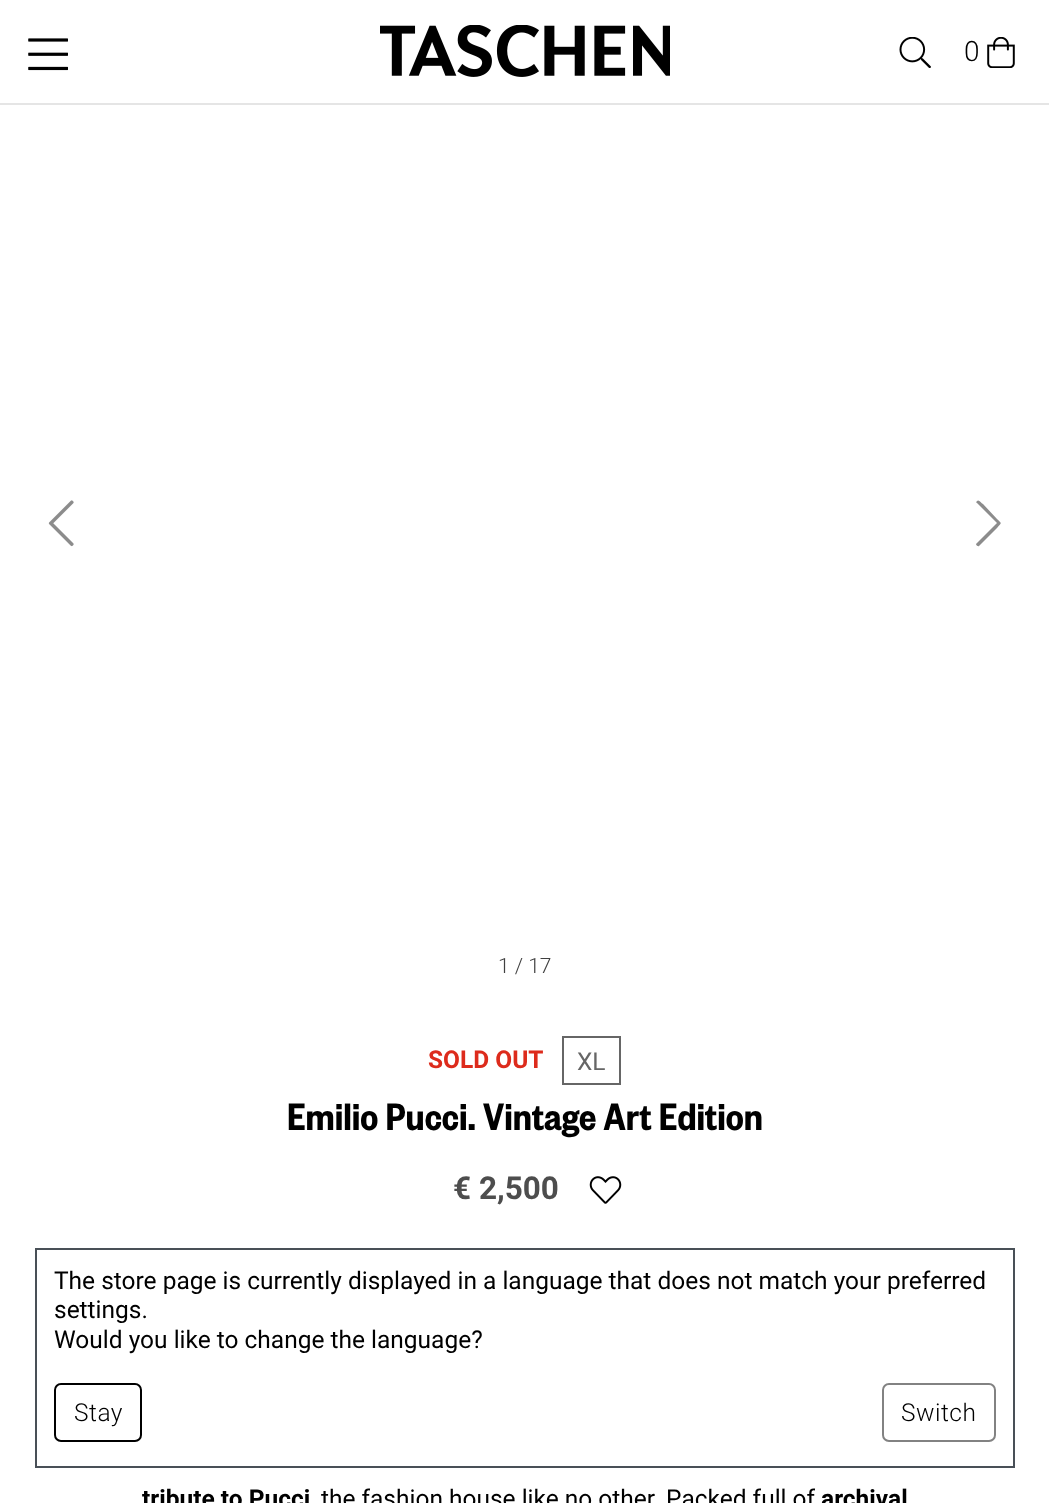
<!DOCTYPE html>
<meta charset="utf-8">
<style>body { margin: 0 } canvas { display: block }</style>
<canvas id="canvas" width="1049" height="1503"></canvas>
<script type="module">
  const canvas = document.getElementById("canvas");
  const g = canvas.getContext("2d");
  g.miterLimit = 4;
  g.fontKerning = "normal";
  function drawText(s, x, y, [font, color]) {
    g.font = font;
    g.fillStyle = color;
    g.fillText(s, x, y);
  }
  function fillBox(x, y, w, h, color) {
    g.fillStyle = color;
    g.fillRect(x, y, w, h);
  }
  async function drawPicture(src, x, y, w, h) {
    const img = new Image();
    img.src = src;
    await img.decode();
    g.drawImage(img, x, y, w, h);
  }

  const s1 = ["300 28px Roboto", "#000000"];
  const s2 = ["300 21px Roboto", "#404040"];
  const s3 = ["bold 24.5px Roboto", "#DD2B1C"];
  const s4 = ["24.5px Roboto", "#666666"];
  const s5 = ["600 42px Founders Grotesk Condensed", "#000000"];
  const s6 = ["bold 31.5px Roboto", "#4D4D4D"];
  const s7 = ["bold 24.5px Roboto", "#000000"];
  const s8 = ["24.5px Roboto", "#000000"];
  const s9 = ["300 24.5px Roboto", "#000000"];

  fillBox(0, 0, 1049, 1503, "#FFFFFF");
  fillBox(0, 103, 1049, 2, "#E5E5E5");
  await drawPicture("pic1.png", 28, 38, 40, 33);
  await drawPicture("pic2.png", 380, 25, 290, 52);
  await drawPicture("pic3.png", 899, 37, 32, 31);
  g.letterSpacing = "0.5px";
  drawText("0", 964, 61, s1);
  await drawPicture("pic4.png", 987, 37, 28, 31);
  await drawPicture("pic5.png", 48, 500, 26, 47);
  g.fillStyle = "#8C8C8C";
  g.beginPath();
  g.moveTo(977, 501);
  g.bezierCurveTo(976, 502, 976, 503, 977, 503);
  g.lineTo(997, 523);
  g.lineTo(976, 544);
  g.bezierCurveTo(976, 545, 978, 547, 979, 546);
  g.lineTo(997, 528);
  g.bezierCurveTo(1002, 522, 1002, 524, 997, 519);
  g.lineTo(983, 504);
  g.bezierCurveTo(981, 503, 979, 499, 977, 501);
  g.closePath();
  g.fill();
  g.letterSpacing = "0px";
  drawText("1 / 17", 498, 973, s2);
  drawText("SOLD OUT", 428, 1068, s3);
  g.strokeStyle = "#666666";
  g.lineWidth = 2;
  g.strokeRect(563, 1037, 57, 47);
  drawText("XL", 577, 1070, s4);
  drawText("Emilio Pucci. Vintage Art Edition", 287, 1130, s5);
  drawText("€ 2,500", 453, 1199, s6);
  await drawPicture("pic6.png", 589, 1176, 33, 28);
  drawText("tribute to Pucci", 142, 1507, s7);
  drawText("the fashion house like no other. Packed full of", 321, 1507, s8);
  drawText("archival", 821, 1507, s7);
  g.strokeStyle = "#495057";
  g.strokeRect(36, 1249, 978, 218);
  drawText("The store page is currently displayed in a language that does not match your preferred", 54, 1289, s8);
  drawText("settings.", 54, 1318, s8);
  drawText("Would you like to change the language?", 54, 1348, s8);
  g.beginPath();
  g.roundRect(55, 1384, 86, 57, 6);
  g.strokeStyle = "#000000";
  g.stroke();
  g.letterSpacing = "0.5px";
  drawText("Stay", 74, 1421, s9);
  g.beginPath();
  g.roundRect(883, 1384, 112, 57, 6);
  g.strokeStyle = "#828282";
  g.stroke();
  drawText("Switch", 901, 1421, s9);
</script>
